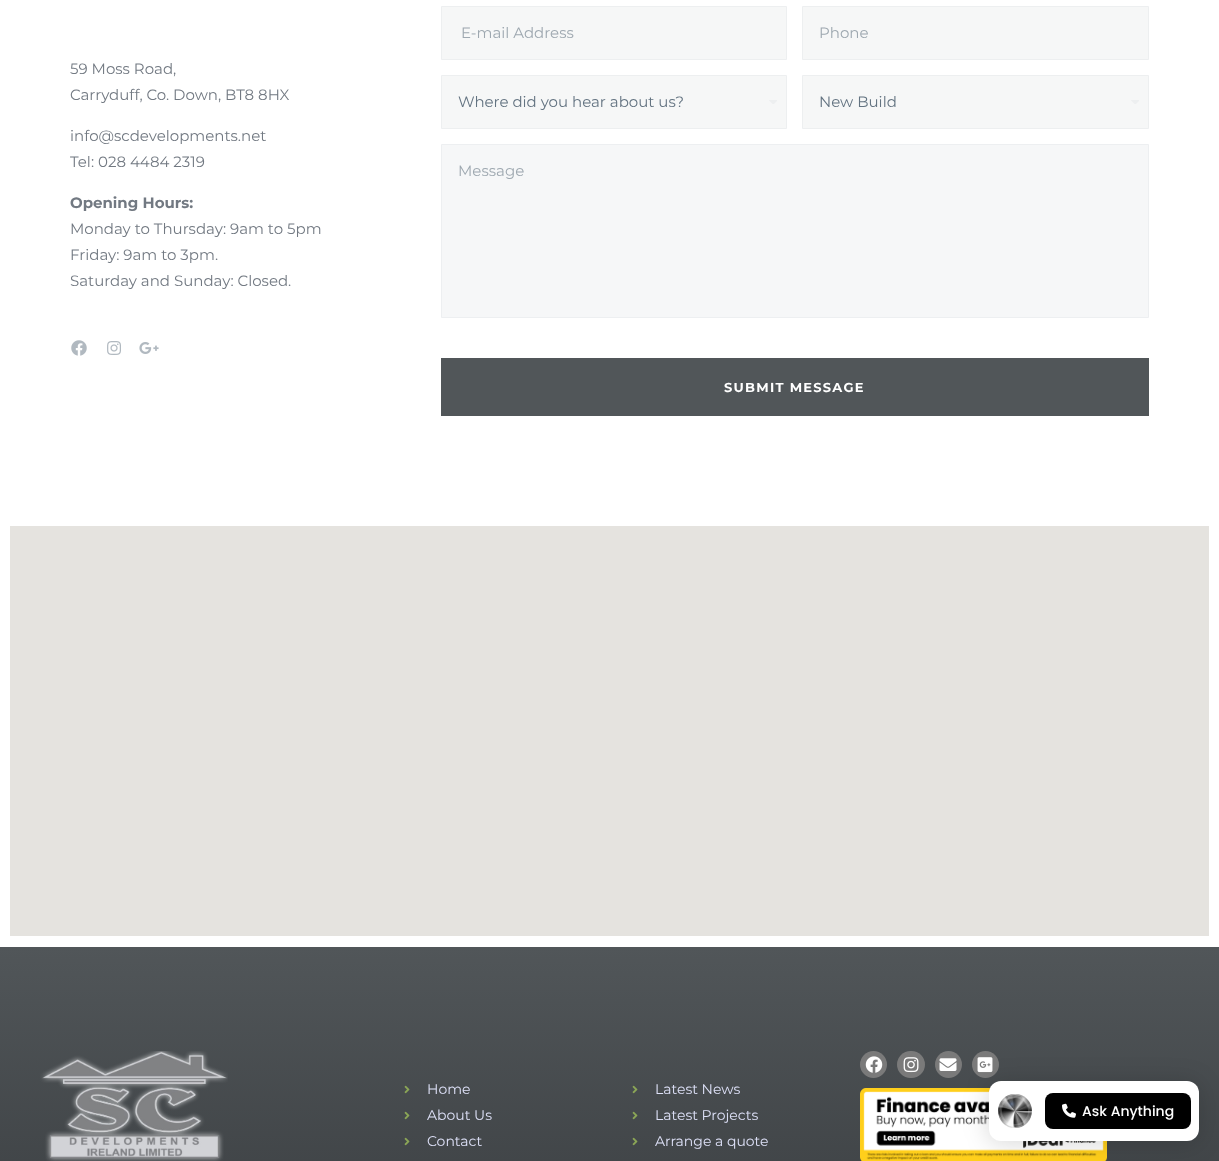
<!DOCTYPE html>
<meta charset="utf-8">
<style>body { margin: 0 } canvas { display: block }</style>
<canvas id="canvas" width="1219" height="1161"></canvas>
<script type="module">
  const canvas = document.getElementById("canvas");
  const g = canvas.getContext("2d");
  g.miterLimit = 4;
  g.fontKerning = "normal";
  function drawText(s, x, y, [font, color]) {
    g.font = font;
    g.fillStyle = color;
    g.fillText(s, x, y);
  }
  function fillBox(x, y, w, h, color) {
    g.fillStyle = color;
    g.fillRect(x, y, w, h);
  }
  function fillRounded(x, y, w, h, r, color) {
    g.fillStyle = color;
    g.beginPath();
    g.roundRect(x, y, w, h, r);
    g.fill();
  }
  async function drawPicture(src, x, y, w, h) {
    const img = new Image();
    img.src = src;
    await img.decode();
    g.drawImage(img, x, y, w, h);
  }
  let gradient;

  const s1 = ["15px Montserrat", "#727982"];
  const s2 = ["bold 15px Montserrat", "#727982"];
  const s3 = ["15px Montserrat", "#9EA8B0"];
  const s4 = ["15px Montserrat", "#637381"];
  const s5 = ["bold 13px Montserrat", "#FFFFFF"];
  const s6 = ["14px Montserrat", "#DEE1F8"];
  const s7 = ["500 14px Poppins", "#FFFFFF"];

  fillBox(0, 0, 1219, 1161, "#FFFFFF");
  drawText("59 Moss Road,", 70, 74, s1);
  drawText("Carryduff, Co. Down, BT8 8HX", 70, 100, s1);
  drawText("info@scdevelopments.net", 70, 141, s1);
  drawText("Tel: 028 4484 2319", 70, 167, s1);
  drawText("Opening Hours:", 70, 208, s2);
  drawText("Monday to Thursday: 9am to 5pm", 70, 234, s1);
  drawText("Friday: 9am to 3pm.", 70, 260, s1);
  drawText("Saturday and Sunday: Closed.", 70, 286, s1);
  await drawPicture("pic1.png", 71, 340, 16, 16);
  await drawPicture("pic2.png", 107, 341, 14, 14);
  await drawPicture("pic3.png", 139, 342, 20, 12);
  g.fillStyle = "#F6F7F7";
  g.beginPath();
  g.rect(441.5, 6.5, 345, 53);
  g.fill();
  g.strokeStyle = "#EDEFF0";
  g.stroke();
  drawText("E-mail Address", 461, 38, s3);
  g.fillStyle = "#F6F7F7";
  g.beginPath();
  g.rect(802.5, 6.5, 346, 53);
  g.fill();
  g.stroke();
  drawText("Phone", 819, 38, s3);
  g.fillStyle = "#F6F7F7";
  g.beginPath();
  g.rect(441.5, 75.5, 345, 53);
  g.fill();
  g.stroke();
  drawText("Where did you hear about us?", 458, 107, s4);
  await drawPicture("pic4.png", 769, 100, 8, 4);
  g.fillStyle = "#F6F7F7";
  g.beginPath();
  g.rect(802.5, 75.5, 346, 53);
  g.fill();
  g.stroke();
  drawText("New Build", 819, 107, s4);
  await drawPicture("pic4.png", 1131, 100, 8, 4);
  g.fillStyle = "#F6F7F8";
  g.beginPath();
  g.rect(441.5, 144.5, 707, 173);
  g.fill();
  g.strokeStyle = "#EDEFF1";
  g.stroke();
  drawText("Message", 458, 176, s3);
  fillBox(441, 358, 708, 58, "#515659");
  g.letterSpacing = "1.25px";
  drawText("SUBMIT MESSAGE", 724, 392, s5);
  fillBox(10, 526, 1199, 410, "#E5E3DF");
  gradient = g.createLinearGradient(610, 947, 610, 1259);
  gradient.addColorStop(0, "#515659");
  gradient.addColorStop(0.86, "#3E4245");
  g.fillStyle = gradient;
  g.fillRect(0, 947, 1219, 214);
  await drawPicture("pic5.png", 40, 1051, 188, 110);
  await drawPicture("pic6.png", 404, 1085, 6, 9);
  g.letterSpacing = "0px";
  drawText("Home", 427, 1094, s6);
  await drawPicture("pic7.png", 404, 1111, 6, 9);
  drawText("About Us", 427, 1120, s6);
  await drawPicture("pic8.png", 404, 1137, 6, 9);
  drawText("Contact", 427, 1146, s6);
  await drawPicture("pic6.png", 632, 1085, 6, 9);
  drawText("Latest News", 655, 1094, s6);
  await drawPicture("pic7.png", 632, 1111, 6, 9);
  drawText("Latest Projects", 655, 1120, s6);
  await drawPicture("pic8.png", 632, 1137, 6, 9);
  drawText("Arrange a quote", 655, 1146, s6);
  g.fillStyle = "#7A7A7A";
  g.beginPath();
  g.arc(873.5, 1064.5, 13.5, 0, Math.PI * 2);
  g.fill();
  await drawPicture("pic9.png", 865, 1056, 18, 17);
  fillRounded(897, 1051, 28, 27, 13.5, "#7A7A7A");
  await drawPicture("pic10.png", 903, 1057, 16, 16);
  g.beginPath();
  g.arc(948.5, 1064.5, 13.5, 0, Math.PI * 2);
  g.fill();
  await drawPicture("pic11.png", 939, 1058, 18, 13);
  g.beginPath();
  g.arc(985.5, 1064.5, 13.5, 0, Math.PI * 2);
  g.fill();
  await drawPicture("pic12.png", 977, 1057, 16, 16);
  await drawPicture("pic13.png", 860, 1088, 247, 73);
  g.fillStyle = "rgba(0, 0, 0, 0.15)";
  g.filter = "blur(12px)";
  g.beginPath();
  g.roundRect(988, 1082, 212, 62, 13);
  g.fill();
  g.filter = "none";
  fillRounded(989, 1081, 210, 60, 12, "#FFFFFF");
  await drawPicture("pic14.png", 998, 1094, 34, 34);
  fillRounded(1045, 1093, 146, 36, 8, "#000000");
  await drawPicture("pic15.png", 1062, 1103, 14, 15);
  drawText("Ask Anything", 1082, 1116, s7);
</script>
